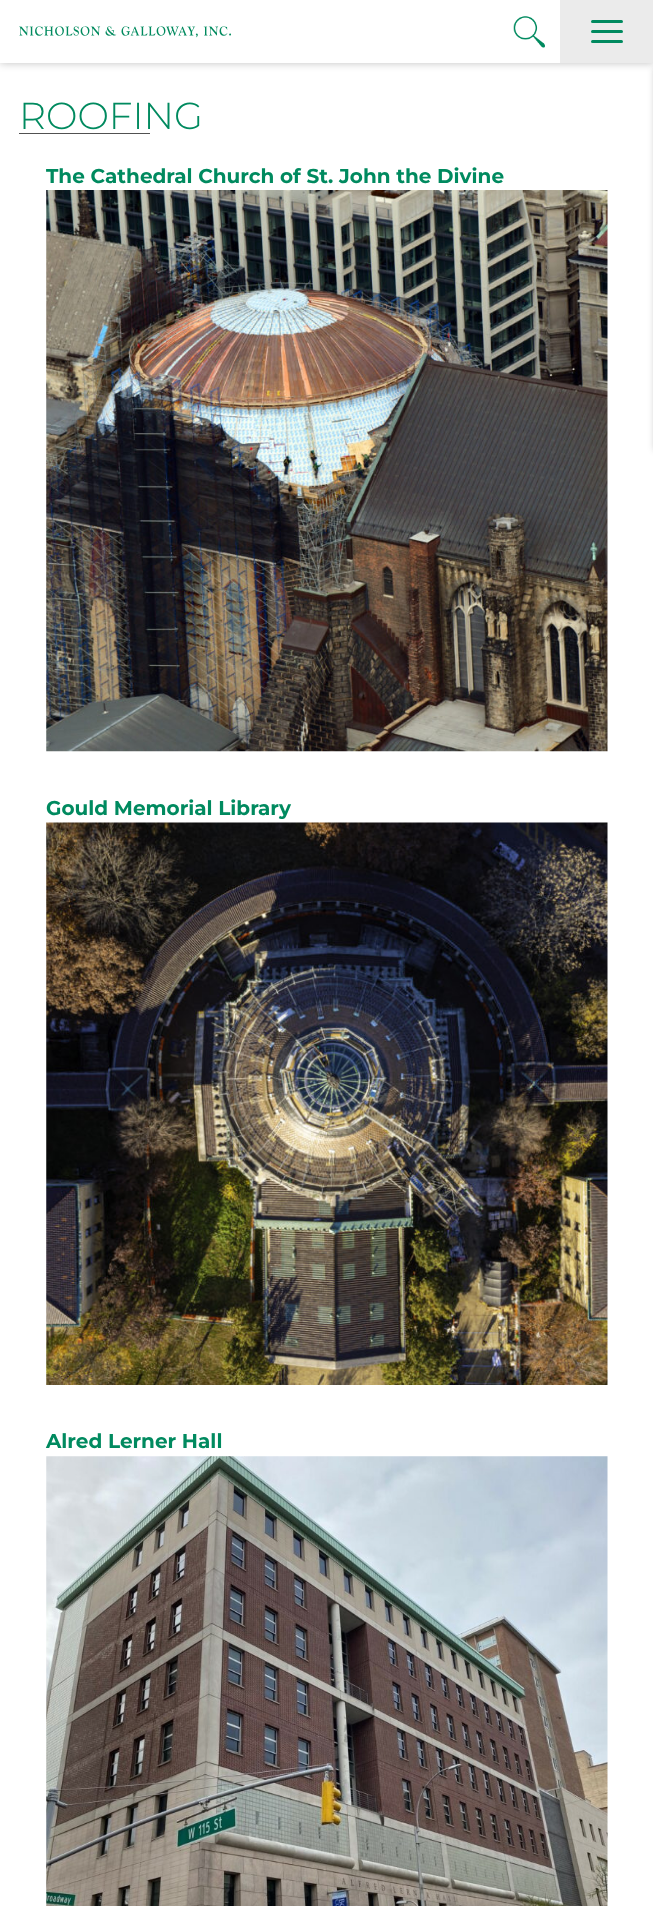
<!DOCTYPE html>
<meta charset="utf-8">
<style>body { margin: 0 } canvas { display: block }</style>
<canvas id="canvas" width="653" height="1906"></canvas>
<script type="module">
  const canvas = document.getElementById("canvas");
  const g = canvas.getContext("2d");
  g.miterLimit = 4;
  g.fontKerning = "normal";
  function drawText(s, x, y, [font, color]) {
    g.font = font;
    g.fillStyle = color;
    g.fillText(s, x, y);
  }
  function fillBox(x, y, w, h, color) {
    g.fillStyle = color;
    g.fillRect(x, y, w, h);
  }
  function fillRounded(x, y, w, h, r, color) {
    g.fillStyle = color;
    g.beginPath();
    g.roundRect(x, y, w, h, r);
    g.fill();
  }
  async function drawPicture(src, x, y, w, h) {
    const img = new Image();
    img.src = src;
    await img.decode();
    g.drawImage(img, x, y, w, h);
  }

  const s1 = ["300 37.5px Montserrat", "#008A5F"];
  const s2 = ["bold 20px Montserrat", "#008A5F"];

  fillBox(0, 0, 653, 1906, "#FFFFFF");
  g.fillStyle = "rgba(0, 0, 0, 0.25)";
  g.filter = "blur(4.5px)";
  g.beginPath();
  g.rect(0, 0, 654, 63);
  g.fill();
  g.filter = "none";
  fillBox(0, 0, 560, 63, "#FFFFFF");
  await drawPicture("pic1.png", 19, 26, 212, 12);
  await drawPicture("pic2.png", 513, 16, 32, 32);
  fillBox(560, 0, 93, 63, "#EBEBEB");
  fillRounded(591, 20, 32, 3, 1.5, "#008A5F");
  fillRounded(591, 30, 32, 3, 1.5, "#008A5F");
  fillRounded(591, 40, 32, 3, 1.5, "#008A5F");
  g.fillStyle = "rgba(0, 0, 0, 0.2)";
  g.filter = "blur(3px)";
  g.beginPath();
  g.rect(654, 68, 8, 382);
  g.fill();
  g.filter = "none";
  drawText("ROOFING", 19, 129, s1);
  fillBox(19, 133, 131, 1, "#515151");
  drawText("The Cathedral Church of St. John the Divine", 46, 183, s2);
  await drawPicture("pic3.png", 46, 190, 562, 562);
  drawText("Gould Memorial Library", 46, 815, s2);
  await drawPicture("pic4.png", 46, 822, 562, 563);
  drawText("Alred Lerner Hall", 46, 1448, s2);
  await drawPicture("pic5.png", 46, 1456, 562, 450);
</script>
